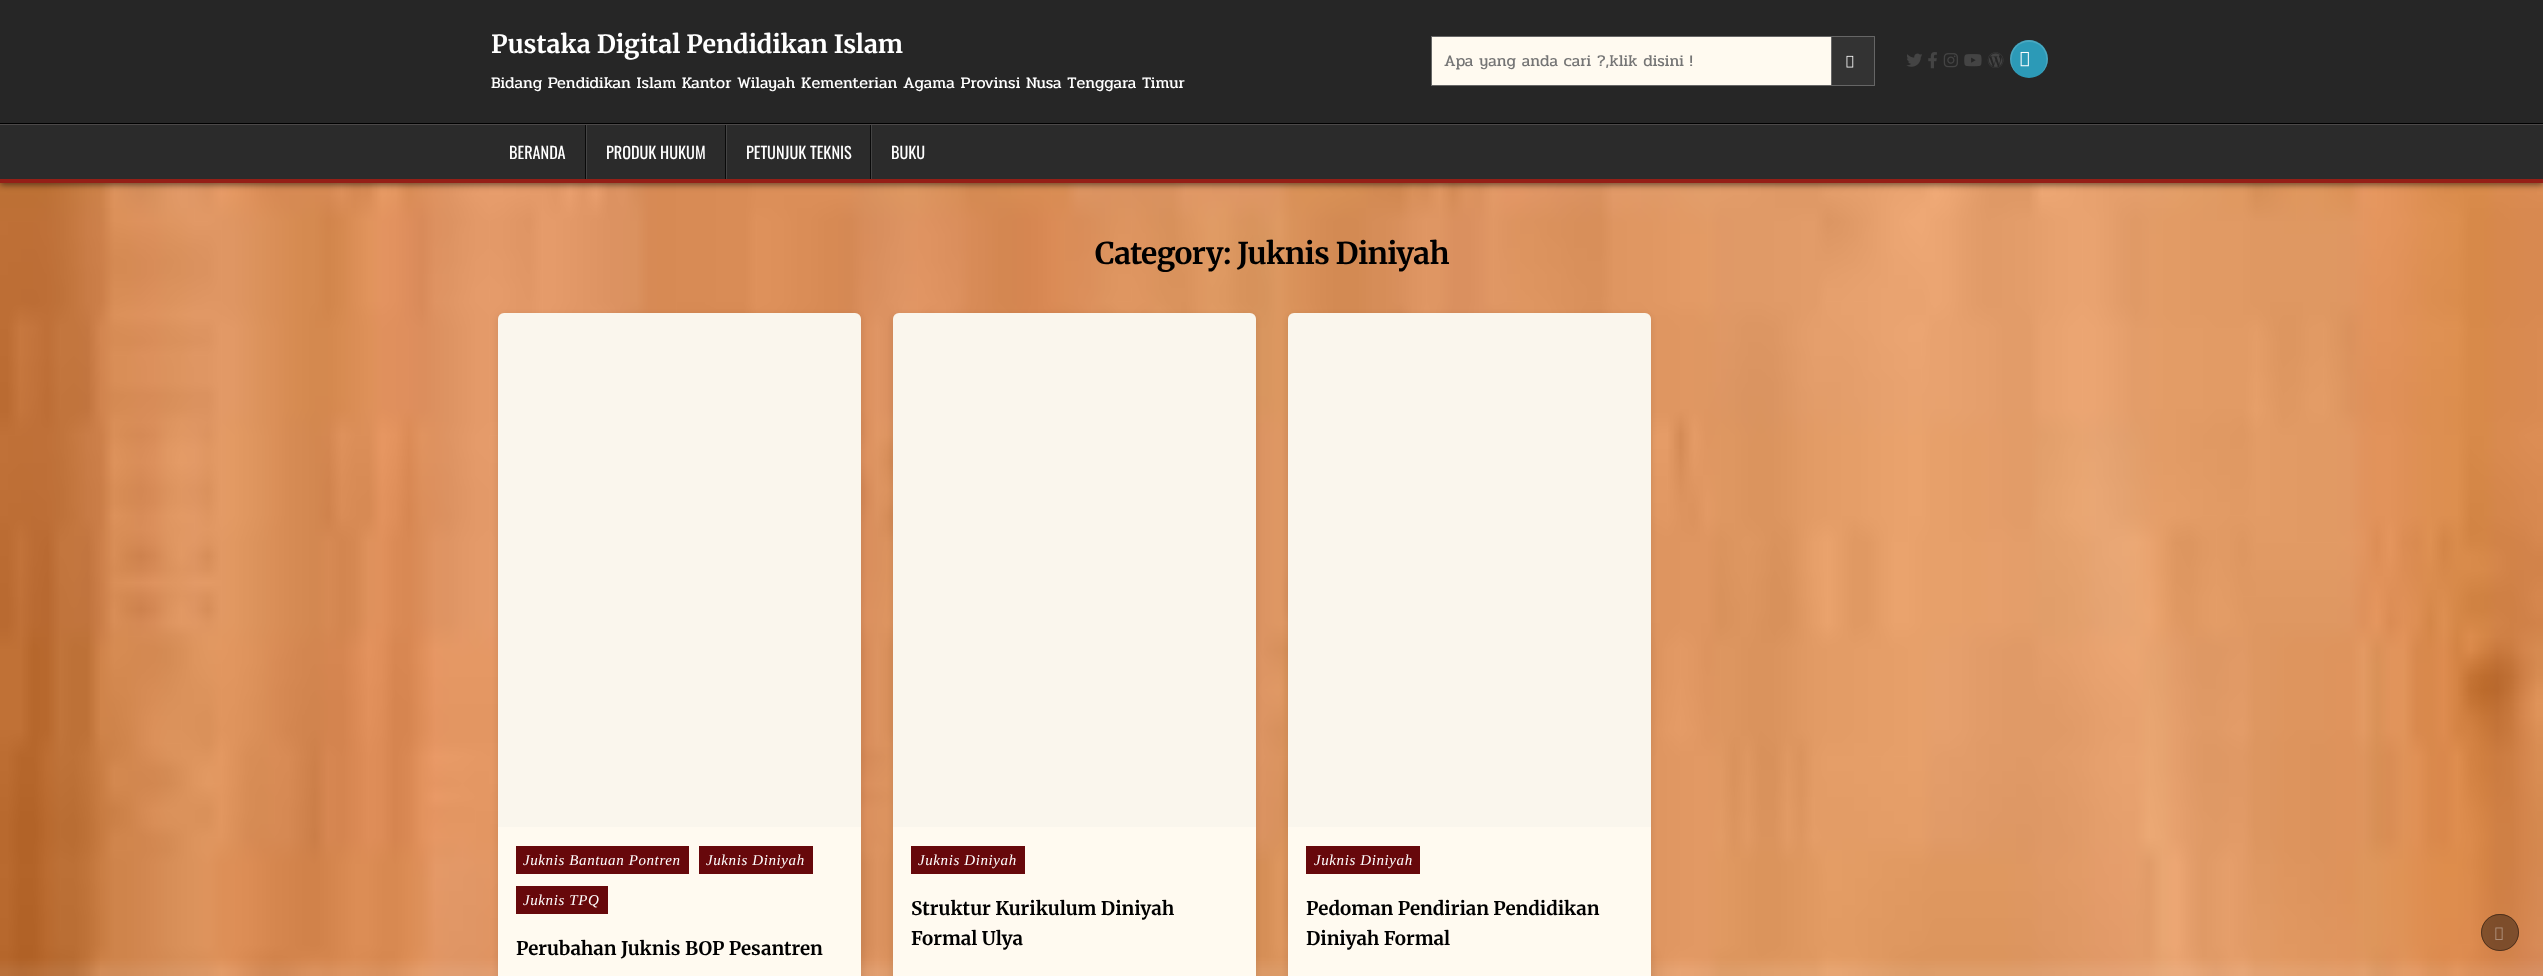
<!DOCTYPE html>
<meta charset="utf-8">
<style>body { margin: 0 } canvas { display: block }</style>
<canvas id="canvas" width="2543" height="976"></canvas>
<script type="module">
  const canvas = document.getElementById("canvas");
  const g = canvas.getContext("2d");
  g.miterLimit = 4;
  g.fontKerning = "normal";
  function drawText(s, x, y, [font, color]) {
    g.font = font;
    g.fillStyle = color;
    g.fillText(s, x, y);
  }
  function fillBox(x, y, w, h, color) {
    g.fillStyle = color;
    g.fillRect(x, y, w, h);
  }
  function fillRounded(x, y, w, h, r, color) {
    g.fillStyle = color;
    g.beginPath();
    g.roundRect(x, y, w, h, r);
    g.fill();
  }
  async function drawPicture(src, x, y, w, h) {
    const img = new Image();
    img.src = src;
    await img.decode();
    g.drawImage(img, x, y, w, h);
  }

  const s1 = ["bold 25px Merriweather", "#FFFFFF"];
  const s2 = ["16.25px Pridi", "#FFFFFF"];
  const s3 = ["16.25px Pridi", "#757575"];
  const s4 = ["16.25px Oswald", "#FFFFFF"];
  const s5 = ["bold 30px Merriweather", "#000000"];
  const s6 = ["italic 15px Liberation Serif", "#FFFFFF"];
  const s7 = ["bold 18.75px Merriweather", "#000000"];

  fillBox(0, 0, 2543, 976, "#FFFFFF");
  await drawPicture("pic1.png", 0, 183, 2543, 793);
  g.fillStyle = "rgba(0, 0, 0, 0.5)";
  g.filter = "blur(3px)";
  g.beginPath();
  g.rect(0, 126, 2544, 59);
  g.fill();
  g.filter = "none";
  fillBox(0, 0, 2543, 123, "#262626");
  fillBox(0, 123, 2543, 1, "#000000");
  drawText("Pustaka Digital Pendidikan Islam", 491, 53, s1);
  drawText("Bidang Pendidikan Islam Kantor Wilayah Kementerian Agama Provinsi Nusa Tenggara Timur", 491, 88, s2);
  fillBox(1432, 37, 399, 48, "#FFFAF0");
  g.strokeStyle = "#666666";
  g.strokeRect(1431.5, 36.5, 443, 49);
  drawText("Apa yang anda cari ?,klik disini !", 1444, 66, s3);
  g.fillStyle = "#333333";
  g.beginPath();
  g.rect(1831.5, 36.5, 43, 49);
  g.fill();
  g.stroke();
  await drawPicture("pic2.png", 1846, 55, 8, 13);
  await drawPicture("pic3.png", 1906, 53, 16, 14);
  await drawPicture("pic4.png", 1928, 52, 9, 17);
  await drawPicture("pic5.png", 1943, 53, 15, 15);
  await drawPicture("pic6.png", 1964, 54, 18, 13);
  await drawPicture("pic7.png", 1987, 52, 17, 16);
  g.fillStyle = "#2C9AB7";
  g.beginPath();
  g.arc(2029, 59, 19, 0, Math.PI * 2);
  g.fill();
  g.fillStyle = "rgba(255, 255, 255, 0.14)";
  g.beginPath();
  g.moveTo(2029, 42);
  g.bezierCurveTo(2049, 42, 2052, 69, 2037, 76);
  g.bezierCurveTo(2043, 73, 2048, 67, 2048, 59);
  g.bezierCurveTo(2048, 49, 2039, 40, 2029, 40);
  g.bezierCurveTo(2019, 40, 2010, 49, 2010, 59);
  g.bezierCurveTo(2010, 67, 2015, 73, 2021, 76);
  g.bezierCurveTo(2006, 69, 2009, 42, 2029, 42);
  g.closePath();
  g.fill();
  await drawPicture("pic8.png", 2020, 51, 9, 16);
  fillBox(0, 125, 2543, 54, "#2B2B2B");
  fillBox(0, 124, 2543, 1, "#4C4949");
  fillBox(0, 179, 2543, 4, "#951F17");
  fillBox(585, 125, 1, 54, "#090909");
  drawText("BERANDA", 509, 159, s4);
  fillBox(725, 125, 1, 54, "#090909");
  fillBox(586, 125, 1, 54, "#444444");
  drawText("PRODUK HUKUM", 606, 159, s4);
  fillBox(870, 125, 1, 54, "#090909");
  fillBox(726, 125, 1, 54, "#444444");
  drawText("PETUNJUK TEKNIS", 746, 159, s4);
  fillBox(871, 125, 1, 54, "#444444");
  drawText("BUKU", 891, 159, s4);
  g.letterSpacing = "-0.6px";
  drawText("Category: Juknis Diniyah", 1095, 264, s5);
  g.fillStyle = "rgba(0, 0, 0, 0.1)";
  g.filter = "blur(3px)";
  g.beginPath();
  g.roundRect(498, 315, 363, 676, 6);
  g.fill();
  g.filter = "none";
  fillRounded(498, 313, 363, 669, 6, "#FFFAF0");
  g.fillStyle = "rgba(207, 212, 219, 0.1)";
  g.beginPath();
  g.roundRect(498, 313, 363, 514, [6, 6, 0, 0]);
  g.fill();
  fillBox(516, 846, 173, 28, "#67080B");
  g.letterSpacing = "0.6px";
  drawText("Juknis Bantuan Pontren", 523, 865, s6);
  fillBox(699, 846, 114, 28, "#67080B");
  drawText("Juknis Diniyah", 706, 865, s6);
  fillBox(516, 886, 92, 28, "#67080B");
  drawText("Juknis TPQ", 523, 905, s6);
  g.letterSpacing = "0px";
  drawText("Perubahan Juknis BOP Pesantren", 516, 955, s7);
  g.fillStyle = "rgba(0, 0, 0, 0.1)";
  g.filter = "blur(3px)";
  g.beginPath();
  g.roundRect(893, 315, 363, 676, 6);
  g.fill();
  g.filter = "none";
  fillRounded(893, 313, 363, 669, 6, "#FFFAF0");
  g.fillStyle = "rgba(207, 212, 219, 0.1)";
  g.beginPath();
  g.roundRect(893, 313, 363, 514, [6, 6, 0, 0]);
  g.fill();
  fillBox(911, 846, 114, 28, "#67080B");
  g.letterSpacing = "0.6px";
  drawText("Juknis Diniyah", 918, 865, s6);
  g.letterSpacing = "0px";
  drawText("Struktur Kurikulum Diniyah", 911, 915, s7);
  drawText("Formal Ulya", 911, 945, s7);
  g.fillStyle = "rgba(0, 0, 0, 0.1)";
  g.filter = "blur(3px)";
  g.beginPath();
  g.roundRect(1288, 315, 363, 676, 6);
  g.fill();
  g.filter = "none";
  fillRounded(1288, 313, 363, 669, 6, "#FFFAF0");
  g.fillStyle = "rgba(207, 212, 219, 0.1)";
  g.beginPath();
  g.roundRect(1288, 313, 363, 514, [6, 6, 0, 0]);
  g.fill();
  fillBox(1306, 846, 114, 28, "#67080B");
  g.letterSpacing = "0.6px";
  drawText("Juknis Diniyah", 1314, 865, s6);
  g.letterSpacing = "0px";
  drawText("Pedoman Pendirian Pendidikan", 1306, 915, s7);
  drawText("Diniyah Formal", 1306, 945, s7);
  fillRounded(2481, 914, 38, 37, 18.5, "rgba(0, 0, 0, 0.4)");
  g.beginPath();
  g.roundRect(2481.5, 914.5, 37, 36, 18);
  g.strokeStyle = "rgba(0, 0, 0, 0.4)";
  g.stroke();
  await drawPicture("pic9.png", 2495, 927, 8, 13);
</script>
